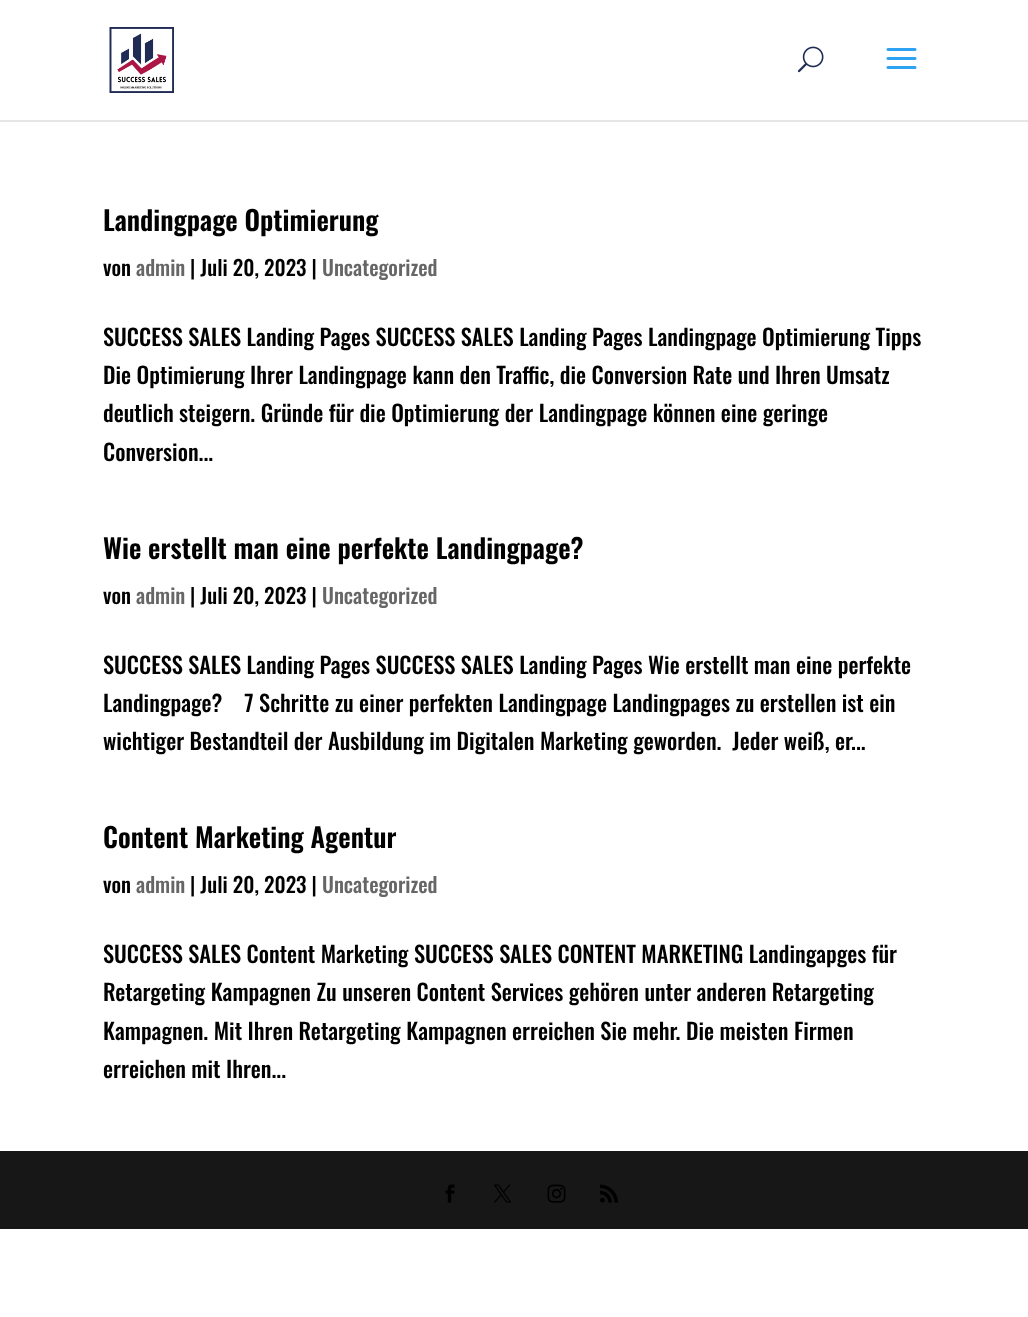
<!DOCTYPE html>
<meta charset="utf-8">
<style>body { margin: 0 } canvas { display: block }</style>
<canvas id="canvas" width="1028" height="1317"></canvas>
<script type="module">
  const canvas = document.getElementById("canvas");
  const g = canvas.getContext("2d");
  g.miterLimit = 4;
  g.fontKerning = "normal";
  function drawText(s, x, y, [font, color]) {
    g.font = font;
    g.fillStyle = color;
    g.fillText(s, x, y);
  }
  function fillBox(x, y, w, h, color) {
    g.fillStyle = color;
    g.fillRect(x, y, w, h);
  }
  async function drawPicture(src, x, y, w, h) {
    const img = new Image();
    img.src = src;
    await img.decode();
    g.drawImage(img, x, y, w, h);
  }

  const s1 = ["600 27px Oswald", "#000000"];
  const s2 = ["500 21px Oswald", "#000000"];
  const s3 = ["500 21px Oswald", "#666666"];
  const s4 = ["500 22.5px Oswald", "#000000"];

  fillBox(0, 0, 1028, 1317, "#FFFFFF");
  fillBox(0, 120, 1028, 2, "#E6E6E6");
  await drawPicture("pic1.png", 109, 27, 65, 66);
  await drawPicture("pic2.png", 797, 46, 27, 27);
  await drawPicture("pic3.png", 886, 48, 31, 21);
  drawText("Landingpage Optimierung", 103, 231, s1);
  drawText("von", 103, 276, s2);
  drawText("admin", 136, 276, s3);
  drawText("| Juli 20, 2023 |", 190, 276, s2);
  drawText("Uncategorized", 322, 276, s3);
  drawText("SUCCESS SALES Landing Pages SUCCESS SALES Landing Pages Landingpage Optimierung Tipps", 103, 346, s4);
  drawText("Die Optimierung Ihrer Landingpage kann den Traffic, die Conversion Rate und Ihren Umsatz", 103, 384, s4);
  drawText("deutlich steigern. Gründe für die Optimierung der Landingpage können eine geringe", 103, 422, s4);
  drawText("Conversion...", 103, 461, s4);
  drawText("Wie erstellt man eine perfekte Landingpage?", 103, 559, s1);
  drawText("von", 103, 604, s2);
  drawText("admin", 136, 604, s3);
  drawText("| Juli 20, 2023 |", 190, 604, s2);
  drawText("Uncategorized", 322, 604, s3);
  drawText("SUCCESS SALES Landing Pages SUCCESS SALES Landing Pages Wie erstellt man eine perfekte", 103, 674, s4);
  drawText("Landingpage?    7 Schritte zu einer perfekten Landingpage Landingpages zu erstellen ist ein", 103, 712, s4);
  drawText("wichtiger Bestandteil der Ausbildung im Digitalen Marketing geworden.  Jeder weiß, er...", 103, 750, s4);
  drawText("Content Marketing Agentur", 103, 848, s1);
  drawText("von", 103, 893, s2);
  drawText("admin", 136, 893, s3);
  drawText("| Juli 20, 2023 |", 190, 893, s2);
  drawText("Uncategorized", 322, 893, s3);
  drawText("SUCCESS SALES Content Marketing SUCCESS SALES CONTENT MARKETING Landingapges für", 103, 963, s4);
  drawText("Retargeting Kampagnen Zu unseren Content Services gehören unter anderen Retargeting", 103, 1001, s4);
  drawText("Kampagnen. Mit Ihren Retargeting Kampagnen erreichen Sie mehr. Die meisten Firmen", 103, 1040, s4);
  drawText("erreichen mit Ihren...", 103, 1078, s4);
  fillBox(0, 1151, 1028, 78, "#171717");
  await drawPicture("pic4.png", 445, 1184, 10, 19);
  await drawPicture("pic5.png", 494, 1184, 17, 19);
  await drawPicture("pic6.png", 547, 1184, 19, 19);
  await drawPicture("pic7.png", 600, 1184, 18, 19);
</script>
